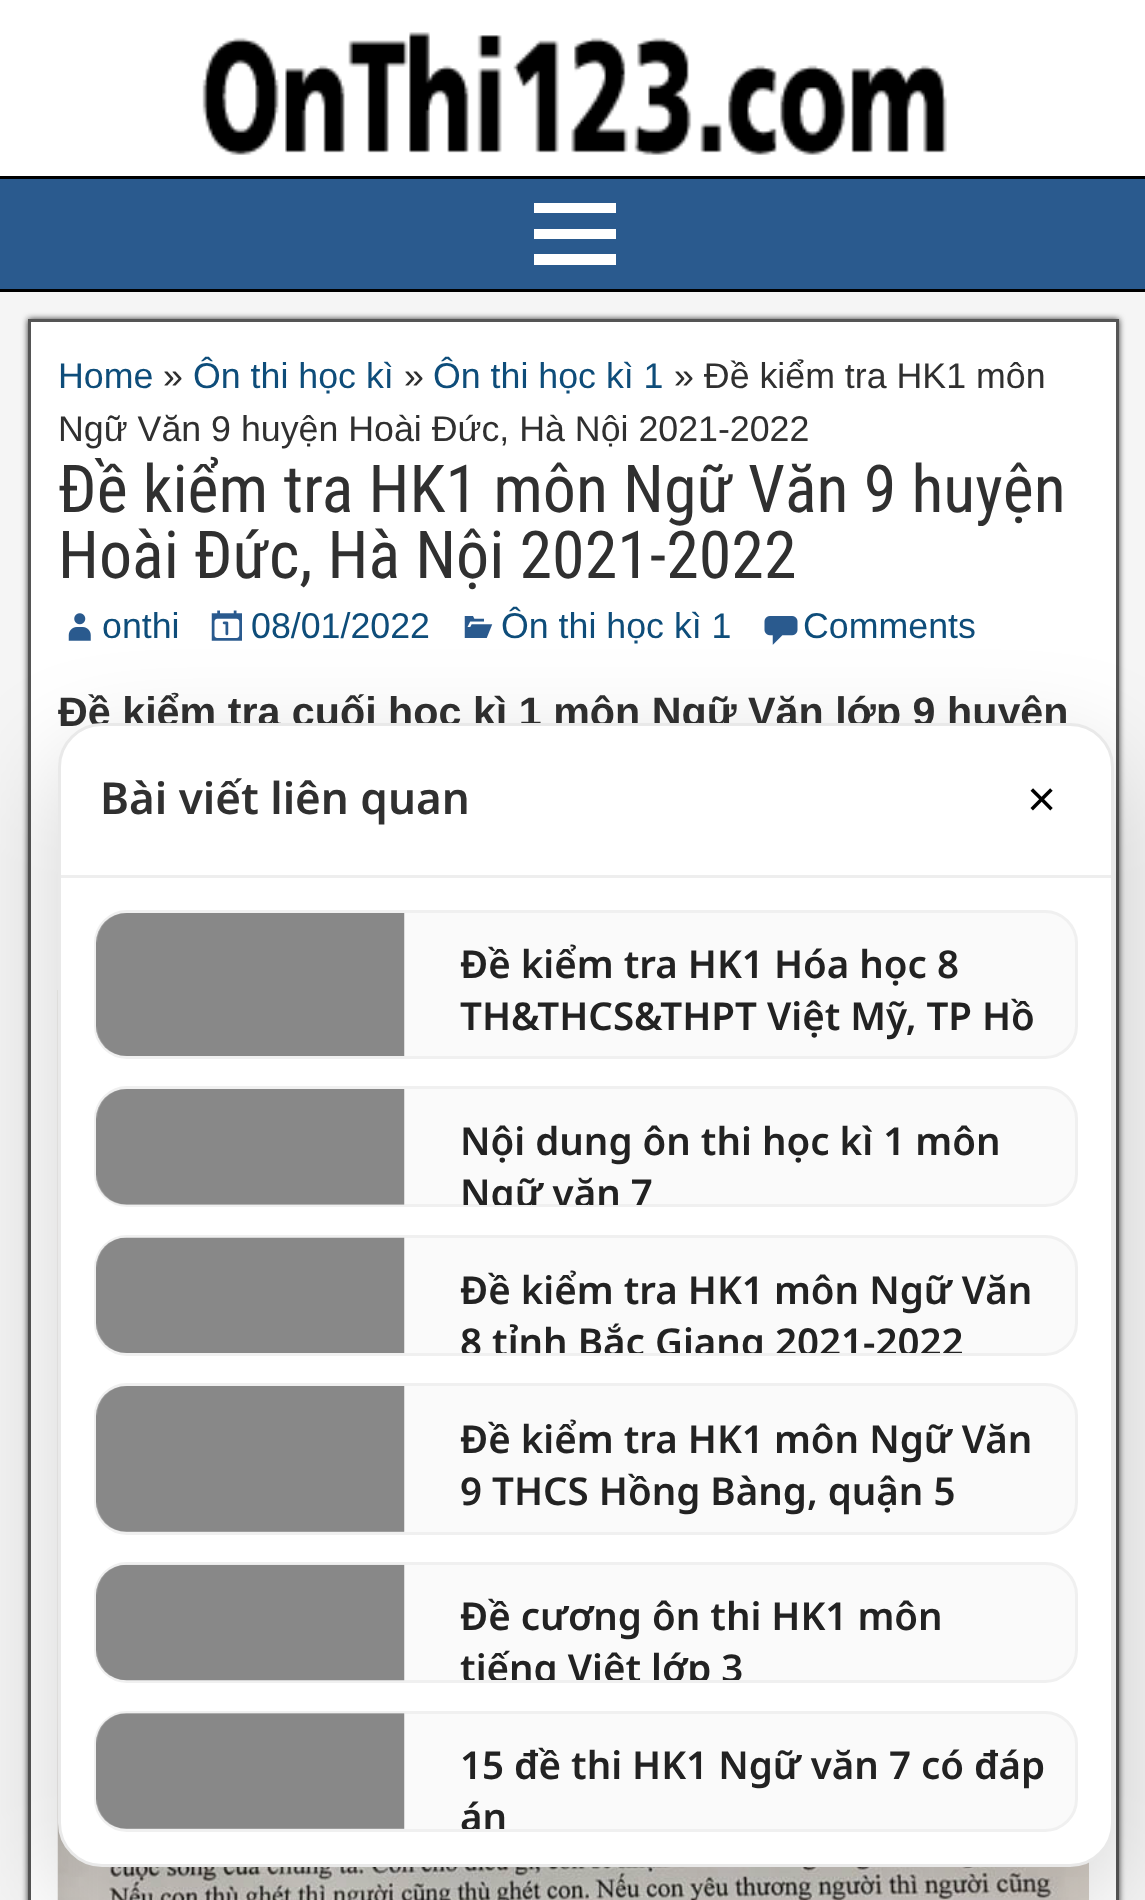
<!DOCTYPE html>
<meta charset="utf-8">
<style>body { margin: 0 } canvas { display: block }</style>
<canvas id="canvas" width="1145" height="1900"></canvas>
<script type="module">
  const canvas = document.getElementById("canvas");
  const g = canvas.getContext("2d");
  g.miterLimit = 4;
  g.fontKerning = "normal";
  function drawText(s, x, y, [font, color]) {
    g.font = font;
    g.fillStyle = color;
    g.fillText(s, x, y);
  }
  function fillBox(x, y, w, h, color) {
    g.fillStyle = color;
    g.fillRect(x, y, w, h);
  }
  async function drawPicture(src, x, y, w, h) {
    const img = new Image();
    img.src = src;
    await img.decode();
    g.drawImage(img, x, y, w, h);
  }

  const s1 = ["35.75px Liberation Sans", "#0E4D7A"];
  const s2 = ["35.75px Liberation Sans", "#303030"];
  const s3 = ["66px Roboto Condensed", "#303030"];
  const s4 = ["bold 41.25px Arimo", "#303030"];
  const s5 = ["600 44px Noto Sans", "#303030"];
  const s6 = ["50px Liberation Sans", "#000000"];
  const s7 = ["600 38.5px Noto Sans", "#222222"];

  fillBox(0, 0, 1145, 1900, "#FFFFFF");
  fillBox(0, 176, 1145, 3, "#000000");
  await drawPicture("pic1.png", 202, 32, 745, 123);
  fillBox(0, 179, 1145, 110, "#2A5A8E");
  fillBox(0, 289, 1145, 3, "#000000");
  g.fillStyle = "#FFFFFF";
  g.beginPath();
  g.moveTo(534, 265);
  g.lineTo(534, 254);
  g.lineTo(616, 254);
  g.lineTo(616, 265);
  g.closePath();
  g.moveTo(534, 203);
  g.lineTo(616, 203);
  g.lineTo(616, 213);
  g.lineTo(534, 213);
  g.closePath();
  g.moveTo(534, 239);
  g.lineTo(534, 229);
  g.lineTo(616, 229);
  g.lineTo(616, 239);
  g.closePath();
  g.fill();
  fillBox(0, 292, 1145, 1608, "#F5F5F5");
  g.fillStyle = "#333333";
  g.filter = "blur(3px)";
  g.beginPath();
  g.rect(28, 319, 1091, 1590);
  g.fill();
  g.filter = "none";
  g.fillStyle = "#FFFFFF";
  g.beginPath();
  g.rect(29.5, 320.5, 1088, 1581);
  g.fill();
  g.strokeStyle = "#555555";
  g.lineWidth = 3;
  g.stroke();
  drawText("Home", 58, 388, s1);
  drawText("»", 163, 388, s2);
  drawText("Ôn thi học kì", 193, 388, s1);
  drawText("»", 404, 388, s2);
  drawText("Ôn thi học kì 1", 433, 388, s1);
  drawText("» Đề kiểm tra HK1 môn", 674, 388, s2);
  drawText("Ngữ Văn 9 huyện Hoài Đức, Hà Nội 2021-2022", 58, 441, s2);
  drawText("Đề kiểm tra HK1 môn Ngữ Văn 9 huyện", 58, 512, s3);
  drawText("Hoài Đức, Hà Nội 2021-2022", 58, 578, s3);
  await drawPicture("pic2.png", 68, 613, 23, 28);
  drawText("onthi", 102, 638, s1);
  await drawPicture("pic3.png", 211, 610, 31, 31);
  drawText("08/01/2022", 251, 638, s1);
  await drawPicture("pic4.png", 464, 616, 29, 22);
  drawText("Ôn thi học kì 1", 501, 638, s1);
  await drawPicture("pic5.png", 764, 616, 34, 29);
  drawText("Comments", 803, 638, s1);
  drawText("Đề kiểm tra cuối học kì 1 môn Ngữ Văn lớp 9 huyện", 58, 726, s4);
  await drawPicture("pic6.png", 57, 990, 1032, 910);
  g.fillStyle = "rgba(0, 0, 0, 0.18)";
  g.filter = "blur(55px)";
  g.beginPath();
  g.roundRect(58, 762, 1056, 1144, 44);
  g.fill();
  g.filter = "none";
  g.fillStyle = "#FFFFFF";
  g.beginPath();
  g.roundRect(59.5, 724.5, 1053, 1141, 42.5);
  g.fill();
  g.strokeStyle = "#E9E9E9";
  g.stroke();
  fillBox(61, 875, 1050, 3, "#EEEEEE");
  drawText("Bài viết liên quan", 100, 814, s5);
  drawText("×", 1027, 816, s6);
  g.fillStyle = "#FAFAFA";
  g.beginPath();
  g.roundRect(95.5, 911.5, 981, 146, 31.5);
  g.fill();
  g.strokeStyle = "#F0F0F0";
  g.stroke();
  g.fillStyle = "#DDDDDD";
  g.beginPath();
  g.roundRect(96, 913, 308, 143, [30, 0, 0, 30]);
  g.fill();
  await drawPicture("pic7.png", 96, 913, 309, 143);
  drawText("Đề kiểm tra HK1 Hóa học 8", 460, 978, s7);
  drawText("TH&THCS&THPT Việt Mỹ, TP Hồ", 460, 1030, s7);
  g.fillStyle = "#FAFAFA";
  g.beginPath();
  g.roundRect(95.5, 1087.5, 981, 118, 31.5);
  g.fill();
  g.stroke();
  g.fillStyle = "#DDDDDD";
  g.beginPath();
  g.roundRect(96, 1089, 308, 116, [30, 0, 0, 30]);
  g.fill();
  await drawPicture("pic8.png", 96, 1089, 309, 116);
  drawText("Nội dung ôn thi học kì 1 môn", 460, 1155, s7);
  g.save();
  g.beginPath();
  g.roundRect(96, 1089, 979, 116, 30);
  g.clip();
  drawText("Ngữ văn 7", 460, 1207, s7);
  g.restore();
  g.fillStyle = "#FAFAFA";
  g.beginPath();
  g.roundRect(95.5, 1236.5, 981, 118, 31.5);
  g.fill();
  g.stroke();
  g.fillStyle = "#DDDDDD";
  g.beginPath();
  g.roundRect(96, 1238, 308, 115, [30, 0, 0, 30]);
  g.fill();
  await drawPicture("pic9.png", 96, 1237, 309, 116);
  drawText("Đề kiểm tra HK1 môn Ngữ Văn", 460, 1304, s7);
  g.save();
  g.beginPath();
  g.roundRect(96, 1238, 979, 115, 30);
  g.clip();
  drawText("8 tỉnh Bắc Giang 2021-2022", 460, 1356, s7);
  g.restore();
  g.fillStyle = "#FAFAFA";
  g.beginPath();
  g.roundRect(95.5, 1384.5, 981, 149, 31.5);
  g.fill();
  g.stroke();
  g.fillStyle = "#DDDDDD";
  g.beginPath();
  g.roundRect(96, 1386, 308, 146, [30, 0, 0, 30]);
  g.fill();
  await drawPicture("pic10.png", 96, 1386, 309, 146);
  drawText("Đề kiểm tra HK1 môn Ngữ Văn", 460, 1453, s7);
  drawText("9 THCS Hồng Bàng, quận 5", 460, 1505, s7);
  g.fillStyle = "#FAFAFA";
  g.beginPath();
  g.roundRect(95.5, 1563.5, 981, 118, 31.5);
  g.fill();
  g.stroke();
  g.fillStyle = "#DDDDDD";
  g.beginPath();
  g.roundRect(96, 1565, 308, 115, [30, 0, 0, 30]);
  g.fill();
  await drawPicture("pic11.png", 96, 1564, 309, 117);
  drawText("Đề cương ôn thi HK1 môn", 460, 1630, s7);
  g.save();
  g.beginPath();
  g.roundRect(96, 1565, 979, 115, 30);
  g.clip();
  drawText("tiếng Việt lớp 3", 460, 1682, s7);
  g.restore();
  g.fillStyle = "#FAFAFA";
  g.beginPath();
  g.roundRect(95.5, 1712.5, 981, 118, 31.5);
  g.fill();
  g.stroke();
  g.fillStyle = "#DDDDDD";
  g.beginPath();
  g.roundRect(96, 1713, 308, 116, [30, 0, 0, 30]);
  g.fill();
  await drawPicture("pic12.png", 96, 1713, 309, 116);
  drawText("15 đề thi HK1 Ngữ văn 7 có đáp", 460, 1779, s7);
  g.save();
  g.beginPath();
  g.roundRect(96, 1713, 979, 116, 30);
  g.clip();
  drawText("án", 460, 1831, s7);
  g.restore();
</script>
